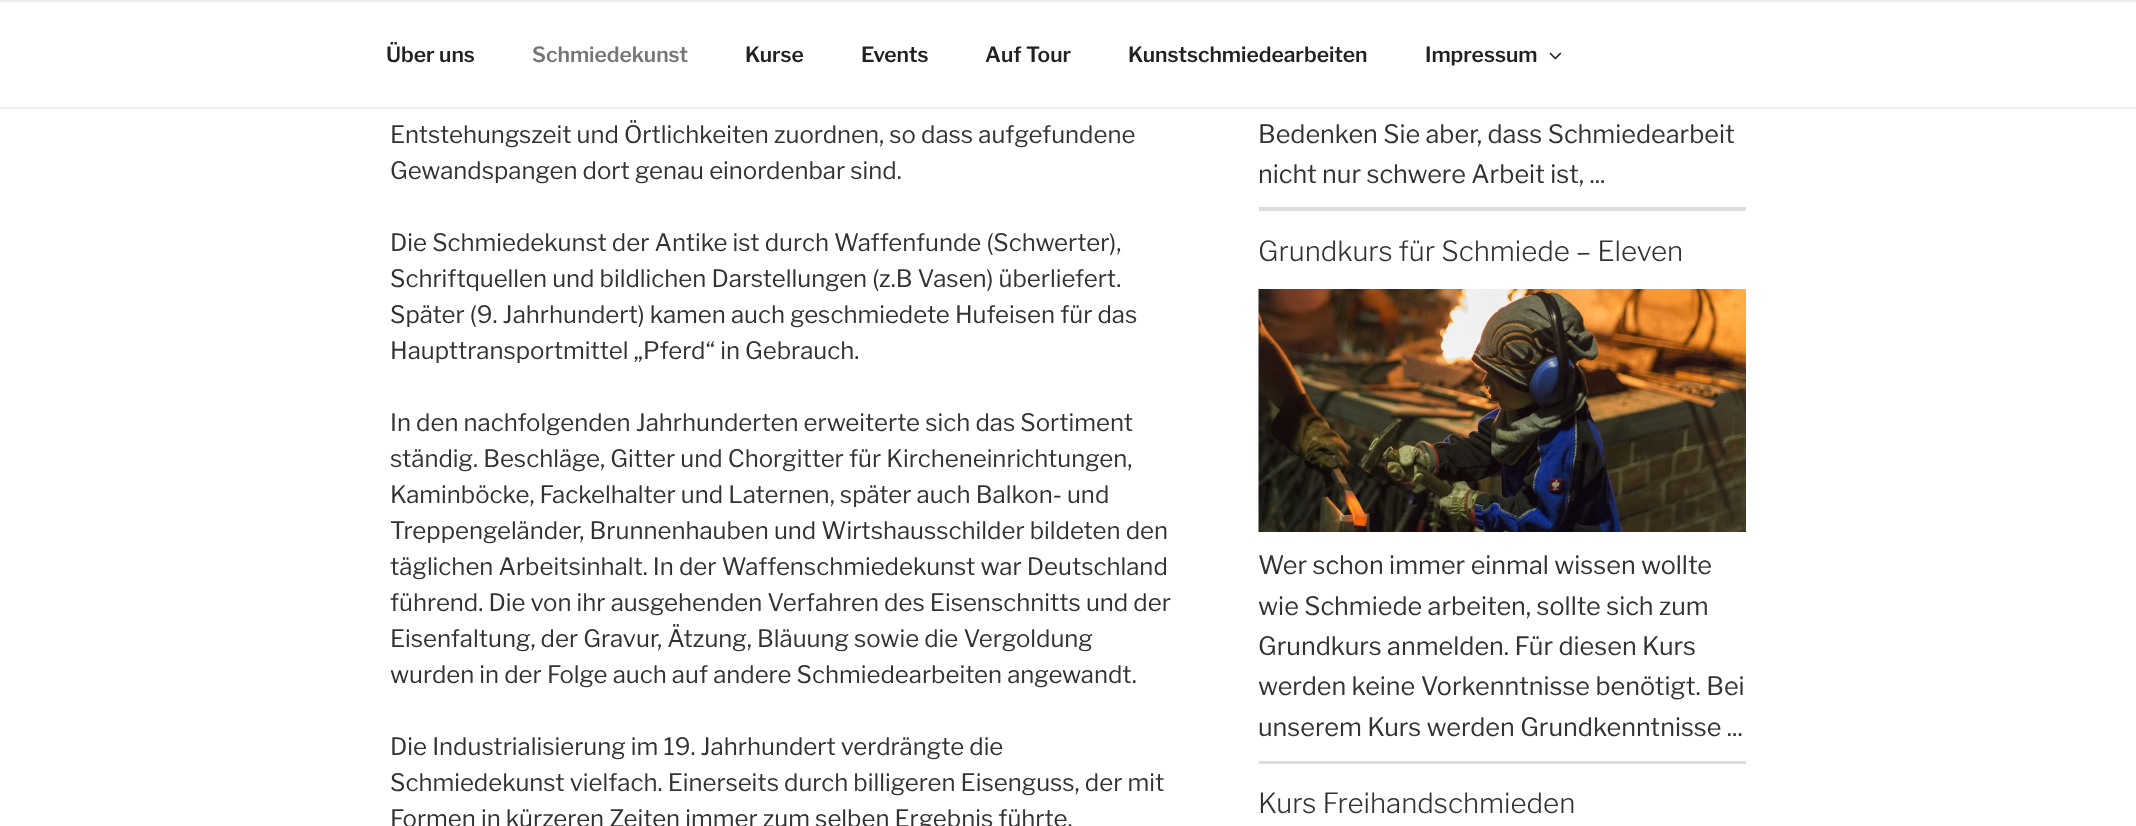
<!DOCTYPE html>
<meta charset="utf-8">
<style>body { margin: 0 } canvas { display: block }</style>
<canvas id="canvas" width="2136" height="826"></canvas>
<script type="module">
  const canvas = document.getElementById("canvas");
  const g = canvas.getContext("2d");
  g.miterLimit = 4;
  g.fontKerning = "normal";
  function drawText(s, x, y, [font, color]) {
    g.font = font;
    g.fillStyle = color;
    g.fillText(s, x, y);
  }
  function fillBox(x, y, w, h, color) {
    g.fillStyle = color;
    g.fillRect(x, y, w, h);
  }
  async function drawPicture(src, x, y, w, h) {
    const img = new Image();
    img.src = src;
    await img.decode();
    g.drawImage(img, x, y, w, h);
  }

  const s1 = ["100 21px 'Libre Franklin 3'", "#222222"];
  const s2 = ["100 21px 'Libre Franklin 3'", "#767676"];
  const s3 = ["100 24px Libre Franklin", "#333333"];
  const s4 = ["100 25.25px Libre Franklin", "#333333"];
  const s5 = ["100 27.75px 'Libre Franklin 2'", "#333333"];

  fillBox(0, 0, 2136, 826, "#FFFFFF");
  fillBox(0, 0, 2136, 2, "#EEEEEE");
  fillBox(0, 107, 2136, 2, "#EEEEEE");
  drawText("Über uns", 386, 62, s1);
  drawText("Schmiedekunst", 532, 62, s2);
  drawText("Kurse", 745, 62, s1);
  drawText("Events", 861, 62, s1);
  drawText("Auf Tour", 985, 62, s1);
  drawText("Kunstschmiedearbeiten", 1128, 62, s1);
  drawText("Impressum", 1425, 62, s1);
  await drawPicture("pic1.png", 1549, 52, 13, 8);
  drawText("Entstehungszeit und Örtlichkeiten zuordnen, so dass aufgefundene", 390, 143, s3);
  drawText("Gewandspangen dort genau einordenbar sind.", 390, 179, s3);
  drawText("Die Schmiedekunst der Antike ist durch Waffenfunde (Schwerter),", 390, 251, s3);
  drawText("Schriftquellen und bildlichen Darstellungen (z.B Vasen) überliefert.", 390, 287, s3);
  drawText("Später (9. Jahrhundert) kamen auch geschmiedete Hufeisen für das", 390, 323, s3);
  drawText("Haupttransportmittel „Pferd“ in Gebrauch.", 390, 359, s3);
  drawText("In den nachfolgenden Jahrhunderten erweiterte sich das Sortiment", 390, 431, s3);
  drawText("ständig. Beschläge, Gitter und Chorgitter für Kircheneinrichtungen,", 390, 467, s3);
  drawText("Kaminböcke, Fackelhalter und Laternen, später auch Balkon- und", 390, 503, s3);
  drawText("Treppengeländer, Brunnenhauben und Wirtshausschilder bildeten den", 390, 539, s3);
  drawText("täglichen Arbeitsinhalt. In der Waffenschmiedekunst war Deutschland", 390, 575, s3);
  drawText("führend. Die von ihr ausgehenden Verfahren des Eisenschnitts und der", 390, 611, s3);
  drawText("Eisenfaltung, der Gravur, Ätzung, Bläuung sowie die Vergoldung", 390, 647, s3);
  drawText("wurden in der Folge auch auf andere Schmiedearbeiten angewandt.", 390, 683, s3);
  drawText("Die Industrialisierung im 19. Jahrhundert verdrängte die", 390, 755, s3);
  drawText("Schmiedekunst vielfach. Einerseits durch billigeren Eisenguss, der mit", 390, 791, s3);
  drawText("Formen in kürzeren Zeiten immer zum selben Ergebnis führte.", 390, 827, s3);
  fillBox(1259, 207, 487, 4, "#DDDDDD");
  drawText("Bedenken Sie aber, dass Schmiedearbeit", 1258, 143, s4);
  drawText("nicht nur schwere Arbeit ist, ...", 1258, 183, s4);
  fillBox(1259, 761, 487, 3, "#DDDDDD");
  drawText("Grundkurs für Schmiede – Eleven", 1258, 261, s5);
  await drawPicture("pic2.png", 1258, 289, 488, 243);
  drawText("Wer schon immer einmal wissen wollte", 1258, 574, s4);
  drawText("wie Schmiede arbeiten, sollte sich zum", 1258, 615, s4);
  drawText("Grundkurs anmelden. Für diesen Kurs", 1258, 655, s4);
  drawText("werden keine Vorkenntnisse benötigt. Bei", 1258, 695, s4);
  drawText("unserem Kurs werden Grundkenntnisse ...", 1258, 736, s4);
  drawText("Kurs Freihandschmieden", 1258, 813, s5);
</script>
